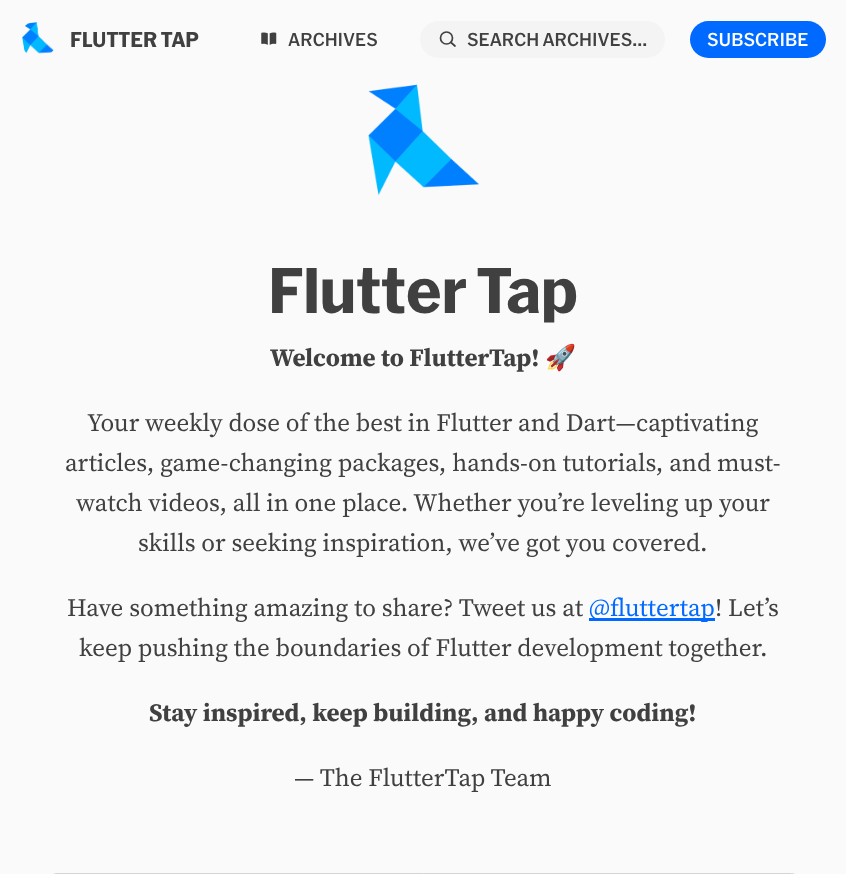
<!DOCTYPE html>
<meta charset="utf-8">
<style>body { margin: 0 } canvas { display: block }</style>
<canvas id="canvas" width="846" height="874"></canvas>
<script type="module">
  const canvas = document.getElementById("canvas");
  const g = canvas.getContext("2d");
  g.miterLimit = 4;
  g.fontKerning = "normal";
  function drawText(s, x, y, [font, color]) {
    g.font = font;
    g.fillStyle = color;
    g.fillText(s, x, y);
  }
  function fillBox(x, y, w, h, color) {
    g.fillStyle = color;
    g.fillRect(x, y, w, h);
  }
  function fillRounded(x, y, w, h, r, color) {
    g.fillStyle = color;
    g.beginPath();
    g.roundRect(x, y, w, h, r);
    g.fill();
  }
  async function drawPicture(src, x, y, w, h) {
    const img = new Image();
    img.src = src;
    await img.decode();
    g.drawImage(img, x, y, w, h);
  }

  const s1 = ["bold 20px 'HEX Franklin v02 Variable'", "#404040"];
  const s2 = ["500 17.5px 'HEX Franklin v02 Variable'", "#404040"];
  const s3 = ["500 17.5px 'HEX Franklin v02 Variable'", "#FFFFFF"];
  const s4 = ["bold 60px 'HEX Franklin v02 Variable'", "#404040"];
  const s5 = ["bold 25px 'Source Serif 4'", "#404040"];
  const s6 = ["25px Noto Color Emoji", "#404040"];
  const s7 = ["25px 'Source Serif 4'", "#404040"];
  const s8 = ["25px 'Source Serif 4'", "#0069FF"];

  fillBox(0, 0, 846, 874, "#FAFAFA");
  await drawPicture("pic1.png", 22, 22, 32, 32);
  drawText("FLUTTER TAP", 70, 47, s1);
  await drawPicture("pic2.png", 261, 32, 16, 13);
  drawText("ARCHIVES", 288, 46, s2);
  fillRounded(420, 21, 245, 37, 18.5, "#F4F4F5");
  g.beginPath();
  g.arc(446.5, 38, 6, 0, Math.PI * 2);
  g.strokeStyle = "#404040";
  g.lineWidth = 1.7;
  g.stroke();
  g.beginPath();
  g.moveTo(451, 42.5);
  g.lineTo(455, 46);
  g.lineCap = "round";
  g.stroke();
  drawText("SEARCH ARCHIVES...", 467, 46, s2);
  fillRounded(690, 21, 136, 37, 18.5, "#0069FF");
  drawText("SUBSCRIBE", 707, 46, s3);
  await drawPicture("pic3.png", 368, 84, 111, 111);
  drawText("Flutter Tap", 268, 313, s4);
  drawText("Welcome to FlutterTap!", 270, 366, s5);
  drawText("🚀", 545, 366, s6);
  drawText("Your weekly dose of the best in Flutter and Dart—captivating", 87, 431, s7);
  drawText("articles, game-changing packages, hands-on tutorials, and must-", 65, 471, s7);
  drawText("watch videos, all in one place. Whether you’re leveling up your", 76, 511, s7);
  drawText("skills or seeking inspiration, we’ve got you covered.", 138, 551, s7);
  drawText("Have something amazing to share? Tweet us at", 67, 616, s7);
  fillBox(589, 618, 126, 3, "#0069FF");
  drawText("@fluttertap", 589, 616, s8);
  drawText("! Let’s", 715, 616, s7);
  drawText("keep pushing the boundaries of Flutter development together.", 79, 656, s7);
  drawText("Stay inspired, keep building, and happy coding!", 149, 721, s5);
  drawText("— The FlutterTap Team", 294, 786, s7);
  g.beginPath();
  g.roundRect(49.5, 873.5, 749, 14, 12.5);
  g.strokeStyle = "#D4D4D8";
  g.lineWidth = 1;
  g.stroke();
</script>
